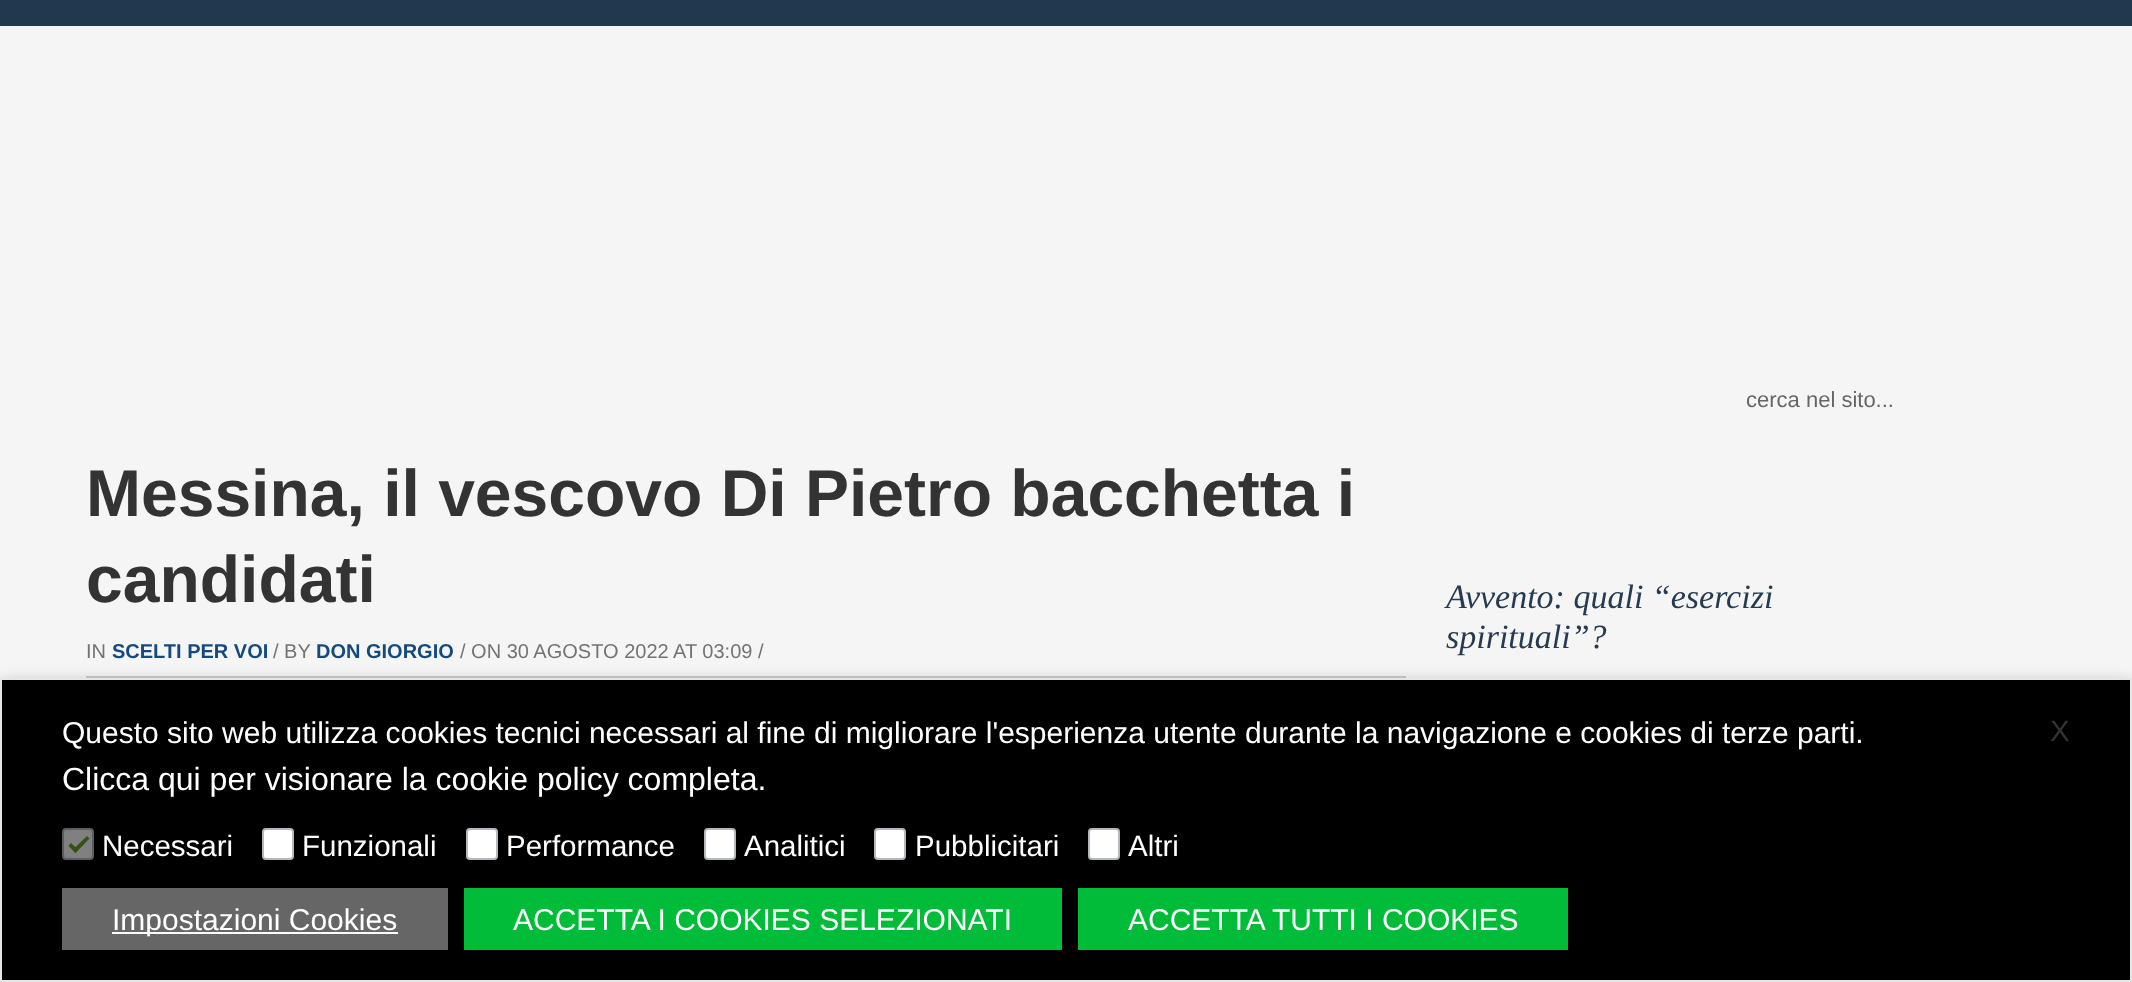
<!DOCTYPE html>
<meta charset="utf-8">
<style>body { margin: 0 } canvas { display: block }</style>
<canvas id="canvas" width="2132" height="982"></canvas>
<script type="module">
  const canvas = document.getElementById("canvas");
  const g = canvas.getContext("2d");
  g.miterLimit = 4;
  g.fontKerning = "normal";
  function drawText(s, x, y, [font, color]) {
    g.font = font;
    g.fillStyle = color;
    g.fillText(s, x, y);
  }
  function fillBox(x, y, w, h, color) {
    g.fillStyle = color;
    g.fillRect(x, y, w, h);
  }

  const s1 = ["22px Liberation Sans", "#656668"];
  const s2 = ["bold 66px Liberation Sans", "#333333"];
  const s3 = ["20px Liberation Sans", "#737373"];
  const s4 = ["bold 20px Liberation Sans", "#154A7F"];
  const s5 = ["italic 34px Liberation Serif", "#263B51"];
  const s6 = ["30px Liberation Sans", "#FFFFFF"];
  const s7 = ["32px Liberation Sans", "#FFFFFF"];
  const s8 = ["29.5px Liberation Sans", "#FFFFFF"];
  const s9 = ["29.5px Liberation Sans", "#333333"];

  fillBox(0, 0, 2132, 982, "#F5F5F5");
  fillBox(0, 0, 2132, 26, "#22384F");
  drawText("cerca nel sito...", 1746, 407, s1);
  drawText("Messina, il vescovo Di Pietro bacchetta i", 86, 516, s2);
  drawText("candidati", 86, 602, s2);
  fillBox(86, 676, 1320, 2, "#CCCCCC");
  drawText("IN", 86, 658, s3);
  drawText("SCELTI PER VOI", 112, 658, s4);
  drawText("/ BY", 273, 658, s3);
  drawText("DON GIORGIO", 316, 658, s4);
  drawText("/ ON 30 AGOSTO 2022 AT 03:09 /", 460, 658, s3);
  drawText("Avvento: quali “esercizi", 1446, 608, s5);
  drawText("spirituali”?", 1446, 648, s5);
  g.fillStyle = "rgba(0, 0, 0, 0.5)";
  g.filter = "blur(10px)";
  g.beginPath();
  g.rect(0, 688, 2132, 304);
  g.fill();
  g.filter = "none";
  g.fillStyle = "#000000";
  g.beginPath();
  g.rect(1, 679, 2130, 302);
  g.fill();
  g.strokeStyle = "#E6E6E6";
  g.lineWidth = 2;
  g.stroke();
  drawText("Questo sito web utilizza cookies tecnici necessari al fine di migliorare l'esperienza utente durante la navigazione e cookies di terze parti.", 62, 743, s6);
  drawText("Clicca qui per visionare la cookie policy completa.", 62, 790, s7);
  g.fillStyle = "#808080";
  g.beginPath();
  g.roundRect(63, 829, 30, 30, 3);
  g.fill();
  g.strokeStyle = "#5A5D5F";
  g.stroke();
  g.fillStyle = "#315115";
  g.beginPath();
  g.moveTo(87, 836);
  g.lineTo(89.5, 838.5);
  g.lineTo(75.5, 853);
  g.lineTo(72.5, 850);
  g.closePath();
  g.fill();
  g.beginPath();
  g.moveTo(71, 843);
  g.lineTo(78.5, 850);
  g.lineTo(75.5, 853);
  g.lineTo(68.5, 846);
  g.closePath();
  g.fill();
  drawText("Necessari", 102, 856, s8);
  g.beginPath();
  g.roundRect(263, 829, 30, 30, 3);
  g.fill();
  g.strokeStyle = "#B4B9BE";
  g.stroke();
  drawText("Funzionali", 302, 856, s8);
  g.beginPath();
  g.roundRect(467, 829, 30, 30, 3);
  g.fill();
  g.stroke();
  drawText("Performance", 506, 856, s8);
  g.beginPath();
  g.roundRect(705, 829, 30, 30, 3);
  g.fill();
  g.stroke();
  drawText("Analitici", 744, 856, s8);
  g.beginPath();
  g.roundRect(875, 829, 30, 30, 3);
  g.fill();
  g.stroke();
  drawText("Pubblicitari", 915, 856, s8);
  g.beginPath();
  g.roundRect(1089, 829, 30, 30, 3);
  g.fill();
  g.stroke();
  drawText("Altri", 1128, 856, s8);
  fillBox(62, 888, 386, 62, "#666666");
  fillBox(112, 932, 286, 2, "#FFFFFF");
  drawText("Impostazioni Cookies", 112, 930, s6);
  fillBox(464, 888, 598, 62, "#00BC38");
  drawText("ACCETTA I COOKIES SELEZIONATI", 513, 930, s6);
  fillBox(1078, 888, 490, 62, "#00BC38");
  drawText("ACCETTA TUTTI I COOKIES", 1128, 930, s6);
  drawText("X", 2050, 741, s9);
</script>
